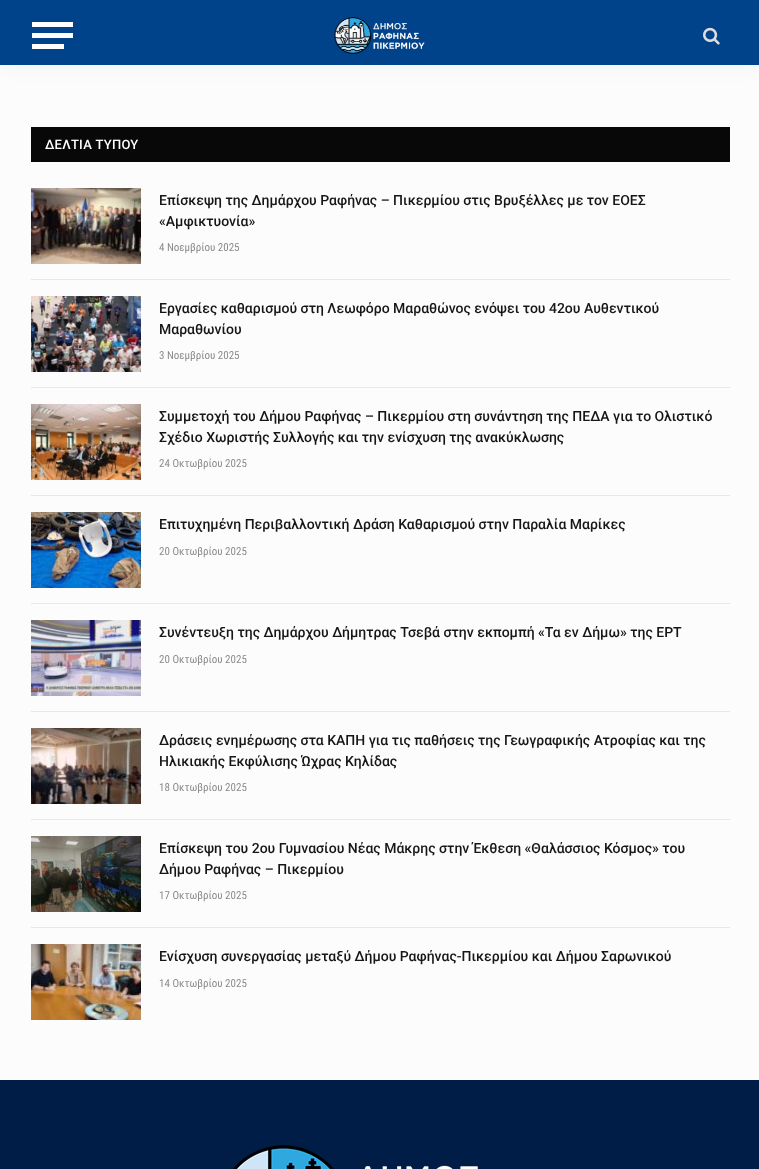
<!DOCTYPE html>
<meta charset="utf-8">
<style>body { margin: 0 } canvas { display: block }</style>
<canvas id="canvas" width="759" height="1169"></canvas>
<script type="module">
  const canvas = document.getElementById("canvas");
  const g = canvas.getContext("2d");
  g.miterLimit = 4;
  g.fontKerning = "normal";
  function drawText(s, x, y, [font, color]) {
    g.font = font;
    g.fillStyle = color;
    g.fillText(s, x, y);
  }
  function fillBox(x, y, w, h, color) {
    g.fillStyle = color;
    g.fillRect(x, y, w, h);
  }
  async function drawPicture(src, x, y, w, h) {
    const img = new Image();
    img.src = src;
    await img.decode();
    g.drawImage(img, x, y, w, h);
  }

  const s1 = ["500 13px Roboto", "#FFFFFF"];
  const s2 = ["500 14px Roboto", "#161616"];
  const s3 = ["11px Roboto Condensed", "#8A8A8A"];

  fillBox(0, 0, 759, 1169, "#FCFCFC");
  g.fillStyle = "rgba(0, 0, 0, 0.05)";
  g.filter = "blur(10px)";
  g.beginPath();
  g.rect(0, 0, 759, 65);
  g.fill();
  g.filter = "none";
  fillBox(0, 0, 759, 65, "#00438A");
  fillBox(32, 44, 32, 5, "#FFFFFF");
  fillBox(32, 22, 41, 5, "#FFFFFF");
  fillBox(32, 33, 41, 5, "#FFFFFF");
  await drawPicture("pic1.png", 334, 17, 91, 37);
  await drawPicture("pic2.png", 703, 27, 17, 18);
  fillBox(31, 127, 699, 35, "#080808");
  g.letterSpacing = "0.25px";
  drawText("ΔΕΛΤΙΑ ΤΥΠΟΥ", 45, 149, s1);
  await drawPicture("pic3.png", 31, 188, 110, 76);
  g.letterSpacing = "0px";
  drawText("Επίσκεψη της Δημάρχου Ραφήνας – Πικερμίου στις Βρυξέλλες με τον ΕΟΕΣ", 159, 205, s2);
  drawText("«Αμφικτυονία»", 159, 226, s2);
  drawText("4 Νοεμβρίου 2025", 159, 251, s3);
  fillBox(31, 279, 699, 1, "#E8E8E8");
  await drawPicture("pic4.png", 31, 296, 110, 76);
  drawText("Εργασίες καθαρισμού στη Λεωφόρο Μαραθώνος ενόψει του 42ου Αυθεντικού", 159, 313, s2);
  drawText("Μαραθωνίου", 159, 334, s2);
  drawText("3 Νοεμβρίου 2025", 159, 359, s3);
  fillBox(31, 387, 699, 1, "#E8E8E8");
  await drawPicture("pic5.png", 31, 404, 110, 76);
  drawText("Συμμετοχή του Δήμου Ραφήνας – Πικερμίου στη συνάντηση της ΠΕΔΑ για το Ολιστικό", 159, 421, s2);
  drawText("Σχέδιο Χωριστής Συλλογής και την ενίσχυση της ανακύκλωσης", 159, 442, s2);
  drawText("24 Οκτωβρίου 2025", 159, 467, s3);
  fillBox(31, 495, 699, 1, "#E8E8E8");
  await drawPicture("pic6.png", 31, 512, 110, 76);
  drawText("Επιτυχημένη Περιβαλλοντική Δράση Καθαρισμού στην Παραλία Μαρίκες", 159, 529, s2);
  drawText("20 Οκτωβρίου 2025", 159, 555, s3);
  fillBox(31, 603, 699, 1, "#E8E8E8");
  await drawPicture("pic7.png", 31, 620, 110, 76);
  drawText("Συνέντευξη της Δημάρχου Δήμητρας Τσεβά στην εκπομπή «Τα εν Δήμω» της ΕΡΤ", 159, 637, s2);
  drawText("20 Οκτωβρίου 2025", 159, 663, s3);
  fillBox(31, 711, 699, 1, "#E8E8E8");
  await drawPicture("pic8.png", 31, 728, 110, 76);
  drawText("Δράσεις ενημέρωσης στα ΚΑΠΗ για τις παθήσεις της Γεωγραφικής Ατροφίας και της", 159, 745, s2);
  drawText("Ηλικιακής Εκφύλισης Ώχρας Κηλίδας", 159, 766, s2);
  drawText("18 Οκτωβρίου 2025", 159, 791, s3);
  fillBox(31, 819, 699, 1, "#E8E8E8");
  await drawPicture("pic9.png", 31, 836, 110, 76);
  drawText("Επίσκεψη του 2ου Γυμνασίου Νέας Μάκρης στην Έκθεση «Θαλάσσιος Κόσμος» του", 159, 853, s2);
  drawText("Δήμου Ραφήνας – Πικερμίου", 159, 874, s2);
  drawText("17 Οκτωβρίου 2025", 159, 899, s3);
  fillBox(31, 927, 699, 1, "#E8E8E8");
  await drawPicture("pic10.png", 31, 944, 110, 76);
  drawText("Ενίσχυση συνεργασίας μεταξύ Δήμου Ραφήνας-Πικερμίου και Δήμου Σαρωνικού", 159, 961, s2);
  drawText("14 Οκτωβρίου 2025", 159, 987, s3);
  fillBox(0, 1080, 759, 89, "#001D47");
  await drawPicture("pic11.png", 233, 1145, 245, 24);
</script>
